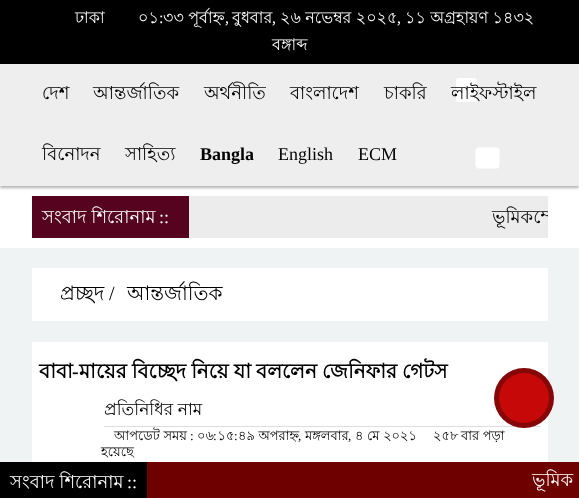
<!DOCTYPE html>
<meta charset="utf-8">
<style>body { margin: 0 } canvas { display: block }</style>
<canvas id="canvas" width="579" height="498"></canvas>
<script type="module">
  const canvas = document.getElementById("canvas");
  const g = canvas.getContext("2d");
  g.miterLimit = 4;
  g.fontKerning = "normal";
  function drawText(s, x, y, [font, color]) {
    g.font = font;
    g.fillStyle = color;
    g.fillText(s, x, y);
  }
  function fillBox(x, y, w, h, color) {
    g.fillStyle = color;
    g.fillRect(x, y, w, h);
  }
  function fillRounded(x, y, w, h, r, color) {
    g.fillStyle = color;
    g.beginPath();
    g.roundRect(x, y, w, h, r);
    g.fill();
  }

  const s1 = ["16px Lohit Bengali", "#FFFFFF"];
  const s2 = ["16px Liberation Serif", "#FFFFFF"];
  const s3 = ["18px Lohit Bengali", "#000000"];
  const s4 = ["bold 18px Liberation Serif", "#000000"];
  const s5 = ["18px Liberation Serif", "#000000"];
  const s6 = ["18px Lohit Bengali", "#FFFFFF"];
  const s7 = ["18px Liberation Serif", "#FFFFFF"];
  const s8 = ["20px Lohit Bengali", "#000000"];
  const s9 = ["20px Liberation Serif", "#000000"];
  const s10 = ["bold 20px Lohit Bengali", "#000000"];
  const s11 = ["bold 20px Liberation Serif", "#000000"];
  const s12 = ["17px Lohit Bengali", "#000000"];
  const s13 = ["13px Lohit Bengali", "#000000"];
  const s14 = ["13px Liberation Serif", "#000000"];

  fillBox(0, 0, 579, 498, "#FFFFFF");
  fillBox(0, 0, 579, 64, "#000000");
  drawText("ঢাকা", 75, 23, s1);
  drawText("০১", 138, 23, s1);
  drawText(":", 159, 23, s2);
  drawText("৩৩ পূর্বাহ্ন", 163, 23, s1);
  drawText(",", 225, 23, s2);
  drawText("বুধবার", 232, 23, s1);
  drawText("২৬ নভেম্বর ২০২৫", 280, 23, s1);
  drawText("১১ অগ্রহায়ণ ১৪৩২", 405, 23, s1);
  drawText(",", 272, 23, s2);
  drawText(",", 397, 23, s2);
  drawText("বঙ্গাব্দ", 272, 50, s1);
  g.fillStyle = "rgba(0, 0, 0, 0.3)";
  g.filter = "blur(1.5px)";
  g.beginPath();
  g.rect(0, 66, 579, 122);
  g.fill();
  g.filter = "none";
  fillBox(0, 64, 579, 122, "#EEEEEE");
  fillRounded(456, 78, 21, 24, 3, "#FFFFFF");
  g.beginPath();
  g.moveTo(475.5, 165.5);
  g.lineTo(475.5, 150.5);
  g.bezierCurveTo(475.5, 149, 477, 147.5, 478.5, 147.5);
  g.lineTo(496.5, 147.5);
  g.bezierCurveTo(498.5, 147.5, 499.5, 149, 499.5, 150.5);
  g.lineTo(499.5, 165.5);
  g.bezierCurveTo(499.5, 167, 498.5, 168.5, 496.5, 168.5);
  g.lineTo(478.5, 168.5);
  g.bezierCurveTo(477, 168.5, 475.5, 167, 475.5, 165.5);
  g.closePath();
  g.fill();
  drawText("দেশ", 42, 99, s3);
  drawText("আন্তর্জাতিক", 93, 99, s3);
  drawText("অর্থনীতি", 204, 99, s3);
  drawText("বাংলাদেশ", 290, 99, s3);
  drawText("চাকরি", 384, 99, s3);
  drawText("লাইফস্টাইল", 451, 99, s3);
  drawText("বিনোদন", 42, 160, s3);
  drawText("সাহিত্য", 125, 160, s3);
  drawText("Bangla", 200, 160, s4);
  drawText("English", 278, 160, s5);
  drawText("ECM", 358, 160, s5);
  fillBox(32, 196, 157, 42, "#55031E");
  drawText("সংবাদ শিরোনাম", 42, 223, s6);
  drawText("::", 159, 223, s7);
  fillBox(189, 196, 359, 42, "#ECECEC");
  g.save();
  g.beginPath();
  g.rect(32, 196, 516, 42);
  g.clip();
  drawText("ভূমিকম্পে", 492, 223, s3);
  g.restore();
  fillBox(0, 248, 579, 214, "#EFF3F4");
  fillBox(32, 268, 516, 53, "#FFFFFF");
  drawText("প্রচ্ছদ", 60, 300, s8);
  drawText("/", 109, 300, s9);
  drawText("আন্তর্জাতিক", 127, 300, s8);
  fillBox(32, 342, 516, 120, "#FFFFFF");
  drawText("বাবা", 39, 378, s10);
  drawText("-", 72, 378, s11);
  g.wordSpacing = "-0.5px";
  drawText("মায়ের বিচ্ছেদ নিয়ে যা বললেন জেনিফার গেটস", 79, 378, s10);
  fillBox(104, 426, 437, 1, "#DDDDDD");
  g.wordSpacing = "0px";
  drawText("প্রতিনিধির নাম", 104, 415, s12);
  drawText("আপডেট সময়", 114, 440, s13);
  drawText(":", 190, 440, s14);
  drawText("০৬ ১৫", 197, 440, s13);
  drawText("৪৯ অপরাহ্ন", 238, 440, s13);
  drawText("মঙ্গলবার", 305, 440, s13);
  drawText("৪ মে ২০২১", 355, 440, s13);
  drawText("২৫৮", 433, 440, s13);
  drawText("বার পড়া", 461, 440, s13);
  drawText(":", 213, 440, s14);
  drawText(":", 234, 440, s14);
  drawText(",", 298, 440, s14);
  drawText(",", 348, 440, s14);
  drawText("হয়েছে", 101, 456, s13);
  g.fillStyle = "#860707";
  g.beginPath();
  g.arc(524, 398, 30, 0, Math.PI * 2);
  g.fill();
  g.fillStyle = "#C60808";
  g.beginPath();
  g.arc(524, 398, 25, 0, Math.PI * 2);
  g.fill();
  fillBox(147, 462, 432, 36, "#6F0000");
  fillBox(0, 462, 147, 36, "#000000");
  drawText("সংবাদ শিরোনাম", 10, 488, s6);
  drawText("::", 127, 488, s7);
  drawText("ভূমিক", 532, 486, s6);
</script>
